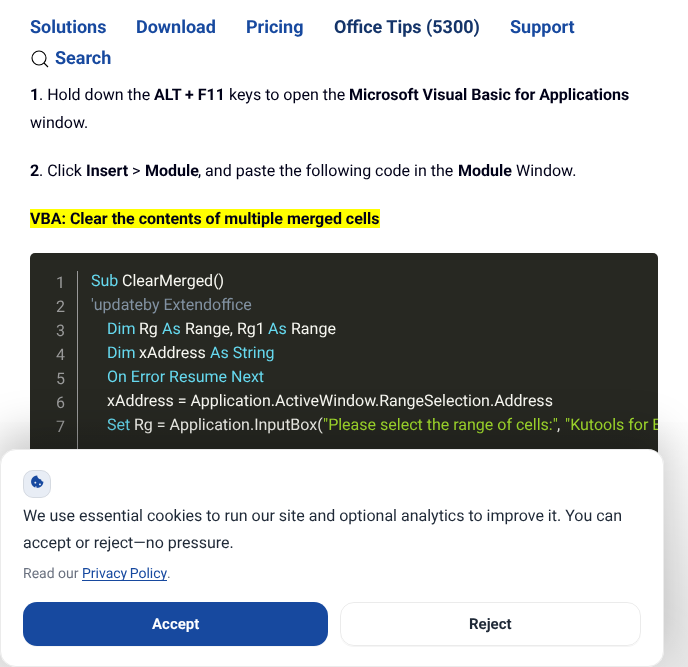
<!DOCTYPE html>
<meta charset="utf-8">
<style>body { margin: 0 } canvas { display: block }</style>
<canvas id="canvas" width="688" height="667"></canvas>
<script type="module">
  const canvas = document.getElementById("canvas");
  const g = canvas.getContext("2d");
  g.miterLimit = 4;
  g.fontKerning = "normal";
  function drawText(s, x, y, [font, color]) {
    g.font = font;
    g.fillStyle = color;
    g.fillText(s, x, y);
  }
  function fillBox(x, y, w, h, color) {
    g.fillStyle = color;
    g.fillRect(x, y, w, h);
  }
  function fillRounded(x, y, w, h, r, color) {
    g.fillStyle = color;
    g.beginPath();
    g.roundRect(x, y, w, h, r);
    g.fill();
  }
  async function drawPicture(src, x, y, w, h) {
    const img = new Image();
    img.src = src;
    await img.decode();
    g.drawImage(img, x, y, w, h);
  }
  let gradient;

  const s1 = ["bold 18px Roboto", "#17499F"];
  const s2 = ["bold 18px Roboto", "#143469"];
  const s3 = ["bold 16px Roboto", "#000118"];
  const s4 = ["16px Roboto", "#000118"];
  const s5 = ["16px Roboto", "#999999"];
  const s6 = ["16px Roboto", "#66D9EF"];
  const s7 = ["16px Roboto", "#F8F8F2"];
  const s8 = ["16px Roboto", "#8292A2"];
  const s9 = ["16px Roboto", "#A6E22E"];
  const s10 = ["16px Roboto", "#1F2937"];
  const s11 = ["14px Roboto", "#6B7280"];
  const s12 = ["14px Roboto", "#17499F"];
  const s13 = ["bold 15px Roboto", "#FFFFFF"];
  const s14 = ["bold 15px Roboto", "#1F2937"];

  fillBox(0, 0, 688, 667, "#FFFFFF");
  drawText("Solutions", 30, 33, s1);
  drawText("Download", 136, 33, s1);
  drawText("Pricing", 246, 33, s1);
  drawText("Office Tips (5300)", 334, 33, s2);
  drawText("Support", 510, 33, s1);
  g.beginPath();
  g.arc(39, 58, 7, 0, Math.PI * 2);
  g.strokeStyle = "#000000";
  g.lineWidth = 1.1;
  g.stroke();
  g.beginPath();
  g.moveTo(44, 63);
  g.lineTo(48, 67);
  g.closePath();
  g.stroke();
  drawText("Search", 55, 64, s1);
  drawText("1", 30, 100, s3);
  drawText(". Hold down the", 39, 100, s4);
  drawText("ALT + F11", 154, 100, s3);
  drawText("keys to open the", 229, 100, s4);
  drawText("Microsoft Visual Basic for Applications", 349, 100, s3);
  drawText("window.", 30, 128, s4);
  drawText("2", 30, 176, s3);
  drawText(". Click", 39, 176, s4);
  drawText("Insert", 86, 176, s3);
  drawText(">", 132, 176, s4);
  drawText("Module", 145, 176, s3);
  drawText(", and paste the following code in the", 198, 176, s4);
  drawText("Module", 458, 176, s3);
  drawText("Window.", 516, 176, s4);
  fillBox(30, 209, 350, 19, "#FFFF00");
  drawText("VBA: Clear the contents of multiple merged cells", 30, 224, s3);
  fillRounded(30, 253, 628, 320, 5, "#272822");
  fillBox(77, 271, 1, 178, "#999999");
  g.letterSpacing = "-1px";
  drawText("1", 56, 288, s5);
  drawText("2", 56, 312, s5);
  drawText("3", 56, 336, s5);
  drawText("4", 56, 360, s5);
  drawText("5", 56, 384, s5);
  drawText("6", 56, 408, s5);
  drawText("7", 56, 432, s5);
  g.letterSpacing = "0px";
  drawText("Sub", 91, 286, s6);
  drawText("ClearMerged()", 122, 286, s7);
  drawText("'updateby Extendoffice", 91, 310, s8);
  drawText("Dim", 107, 334, s6);
  drawText("Rg", 139, 334, s7);
  drawText("As", 162, 334, s6);
  drawText("Range, Rg1", 185, 334, s7);
  drawText("As", 268, 334, s6);
  drawText("Range", 291, 334, s7);
  drawText("Dim", 107, 358, s6);
  drawText("xAddress", 139, 358, s7);
  drawText("As String", 210, 358, s6);
  drawText("On Error Resume Next", 107, 382, s6);
  drawText("xAddress = Application.ActiveWindow", 107, 406, s7);
  drawText(".RangeSelection.Address", 375, 406, s7);
  drawText("Set", 107, 430, s6);
  drawText("Rg = Application.InputBox(", 134, 430, s7);
  drawText("\"Please select the range of cells:\"", 323, 430, s9);
  drawText(",", 557, 430, s7);
  g.save();
  g.beginPath();
  g.roundRect(30, 253, 628, 320, 5);
  g.clip();
  drawText("\"Kutools for E", 565, 430, s9);
  g.restore();
  gradient = g.createRadialGradient(344, 2001, 0, 344, 2001, 1200);
  gradient.addColorStop(0, "rgba(0, 0, 0, 0.17)");
  gradient.addColorStop(0.7, "rgba(0, 0, 0, 0)");
  g.fillStyle = gradient;
  g.beginPath();
  g.rect(0, 422, 688, 245);
  g.save();
  g.clip();
  g.scale(1, 400 / 1200);
  g.fillRect(0, 0, 688, 2001);
  g.restore();
  g.fillStyle = "rgba(0, 0, 0, 0.18)";
  g.filter = "blur(20px)";
  g.beginPath();
  g.roundRect(0, 431, 664, 218, 16);
  g.fill();
  g.filter = "none";
  fillRounded(0, 449, 664, 218, 16, "#FFFFFF");
  g.beginPath();
  g.roundRect(0.5, 449.5, 663, 217, 15.5);
  g.strokeStyle = "rgba(0, 0, 0, 0.08)";
  g.lineWidth = 1;
  g.stroke();
  fillRounded(23, 470, 28, 28, 10, "#E8EDF5");
  g.beginPath();
  g.roundRect(23.5, 470.5, 27, 27, 9.5);
  g.stroke();
  await drawPicture("pic1.png", 31, 475, 13, 13);
  drawText("We use essential cookies to run our site and optional analytics to improve it. You can", 23, 521, s10);
  drawText("accept or reject—no pressure.", 23, 548, s10);
  drawText("Read our", 23, 578, s11);
  fillBox(82, 580, 85, 1, "#17499F");
  g.wordSpacing = "-1px";
  drawText("Privacy Policy", 82, 578, s12);
  g.wordSpacing = "0px";
  drawText(".", 167, 578, s11);
  g.fillStyle = "#F5F5F5";
  g.beginPath();
  g.moveTo(23, 632);
  g.lineTo(23, 633);
  g.bezierCurveTo(23, 641, 29, 647, 37, 647);
  g.lineTo(314, 647);
  g.bezierCurveTo(322, 647, 328, 641, 328, 633);
  g.lineTo(328, 632);
  g.bezierCurveTo(328, 640, 322, 646, 314, 646);
  g.lineTo(37, 646);
  g.bezierCurveTo(29, 646, 23, 640, 23, 632);
  g.closePath();
  g.fill();
  fillRounded(23, 602, 305, 44, 14, "#17499F");
  drawText("Accept", 152, 629, s13);
  g.fillStyle = "#F5F5F5";
  g.beginPath();
  g.moveTo(340, 632);
  g.lineTo(340, 633);
  g.bezierCurveTo(340, 641, 346, 647, 354, 647);
  g.lineTo(627, 647);
  g.bezierCurveTo(635, 647, 641, 641, 641, 633);
  g.lineTo(641, 632);
  g.bezierCurveTo(641, 640, 635, 646, 627, 646);
  g.lineTo(354, 646);
  g.bezierCurveTo(346, 646, 340, 640, 340, 632);
  g.closePath();
  g.fill();
  g.beginPath();
  g.roundRect(340.5, 602.5, 300, 43, 13.5);
  g.stroke();
  drawText("Reject", 469, 629, s14);
</script>
